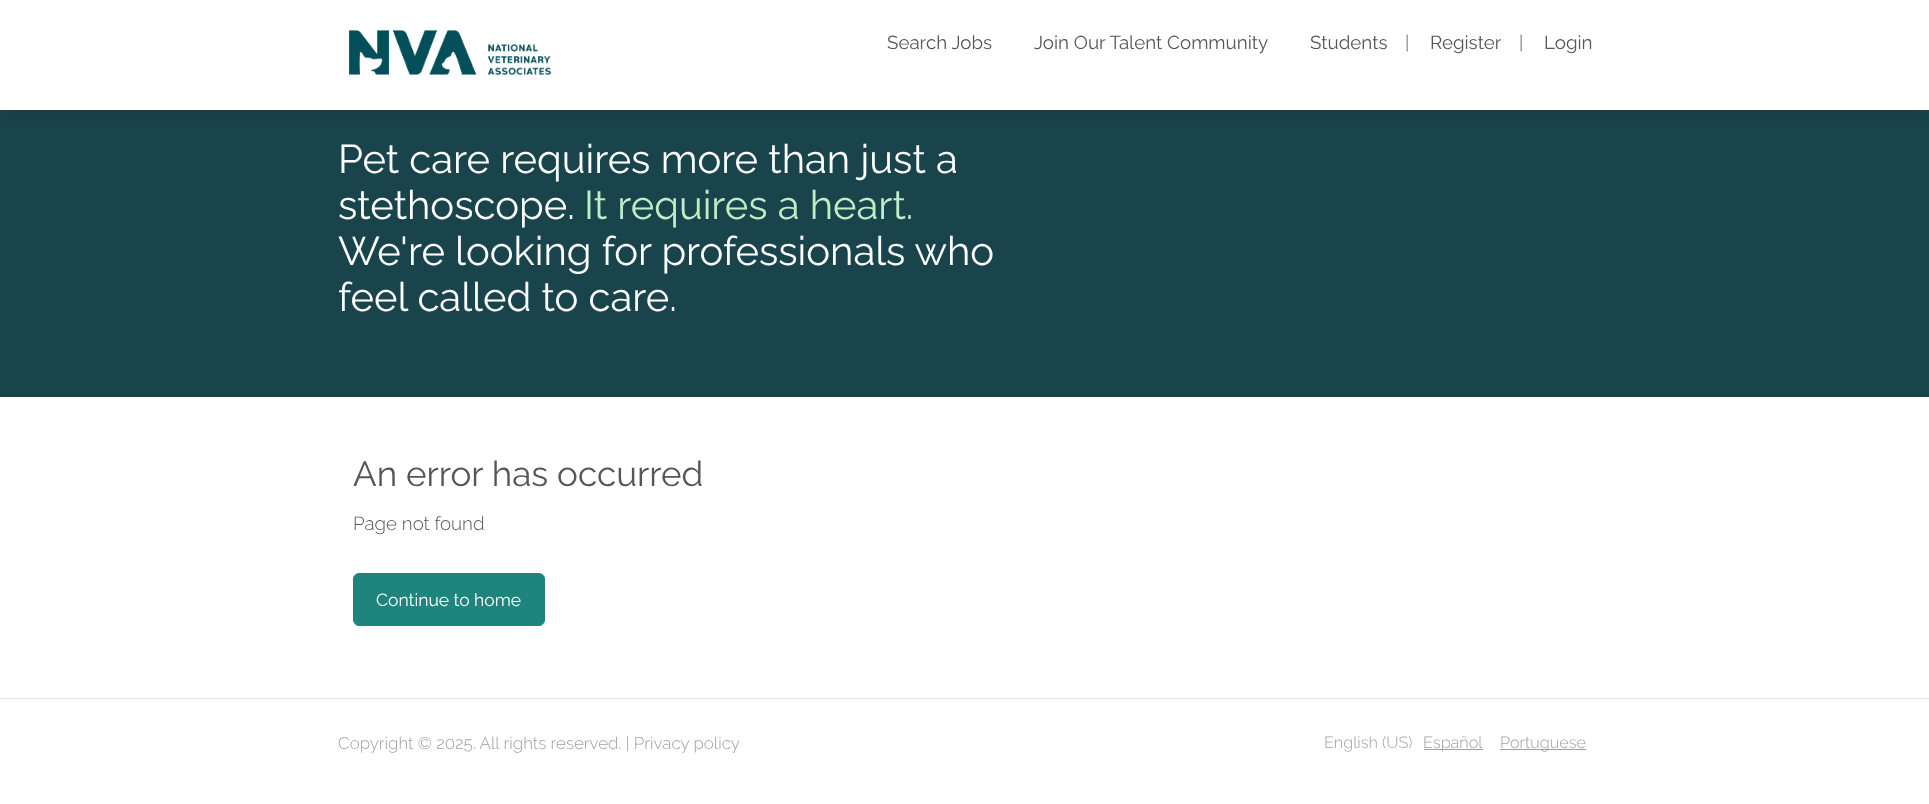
<!DOCTYPE html>
<meta charset="utf-8">
<style>body { margin: 0 } canvas { display: block }</style>
<canvas id="canvas" width="1929" height="804"></canvas>
<script type="module">
  const canvas = document.getElementById("canvas");
  const g = canvas.getContext("2d");
  g.miterLimit = 4;
  g.fontKerning = "normal";
  function drawText(s, x, y, [font, color]) {
    g.font = font;
    g.fillStyle = color;
    g.fillText(s, x, y);
  }
  function fillBox(x, y, w, h, color) {
    g.fillStyle = color;
    g.fillRect(x, y, w, h);
  }
  async function drawPicture(src, x, y, w, h) {
    const img = new Image();
    img.src = src;
    await img.decode();
    g.drawImage(img, x, y, w, h);
  }

  const s1 = ["18.75px Raleway", "#565656"];
  const s2 = ["300 18.75px Raleway", "#565656"];
  const s3 = ["40px Raleway", "#FFFFFF"];
  const s4 = ["40px Raleway", "#BFEEC5"];
  const s5 = ["35px Raleway", "#565656"];
  const s6 = ["17.5px Raleway", "#FFFFFF"];
  const s7 = ["300 16.9px Raleway", "#A0A0A0"];
  const s8 = ["300 16.25px Raleway", "#A0A0A0"];

  fillBox(0, 0, 1929, 804, "#FFFFFF");
  fillBox(0, 110, 1929, 287, "#19444B");
  g.fillStyle = "rgba(0, 0, 0, 0.15)";
  g.filter = "blur(9px)";
  g.beginPath();
  g.rect(4, 8, 1922, 102);
  g.fill();
  g.filter = "none";
  fillBox(0, 0, 1929, 110, "#FFFFFF");
  await drawPicture("pic1.png", 349, 30, 203, 45);
  drawText("Search Jobs", 887, 49, s1);
  drawText("Join Our Talent Community", 1034, 49, s1);
  drawText("Students", 1310, 49, s1);
  drawText("|", 1405, 49, s2);
  drawText("Register", 1430, 49, s1);
  drawText("|", 1519, 49, s2);
  drawText("Login", 1544, 49, s1);
  drawText("Pet care requires more than just a", 338, 173, s3);
  drawText("stethoscope.", 338, 219, s3);
  drawText("It requires a heart.", 584, 219, s4);
  drawText("We're looking for professionals who", 338, 265, s3);
  drawText("feel called to care.", 338, 311, s3);
  drawText("An error has occurred", 353, 486, s5);
  drawText("Page not found", 353, 530, s2);
  g.fillStyle = "#1F847D";
  g.beginPath();
  g.roundRect(353.5, 573.5, 191, 52, 5.5);
  g.fill();
  g.strokeStyle = "#1F847D";
  g.stroke();
  drawText("Continue to home", 376, 606, s6);
  fillBox(0, 698, 1929, 1, "#E2E2E2");
  drawText("Copyright © 2025. All rights reserved. | Privacy policy", 338, 749, s7);
  drawText("English (US)", 1324, 748, s8);
  fillBox(1424, 749, 59, 1, "#A0A0A0");
  drawText("Español", 1423, 748, s8);
  fillBox(1500, 749, 86, 1, "#A0A0A0");
  drawText("Portuguese", 1500, 748, s8);
</script>
